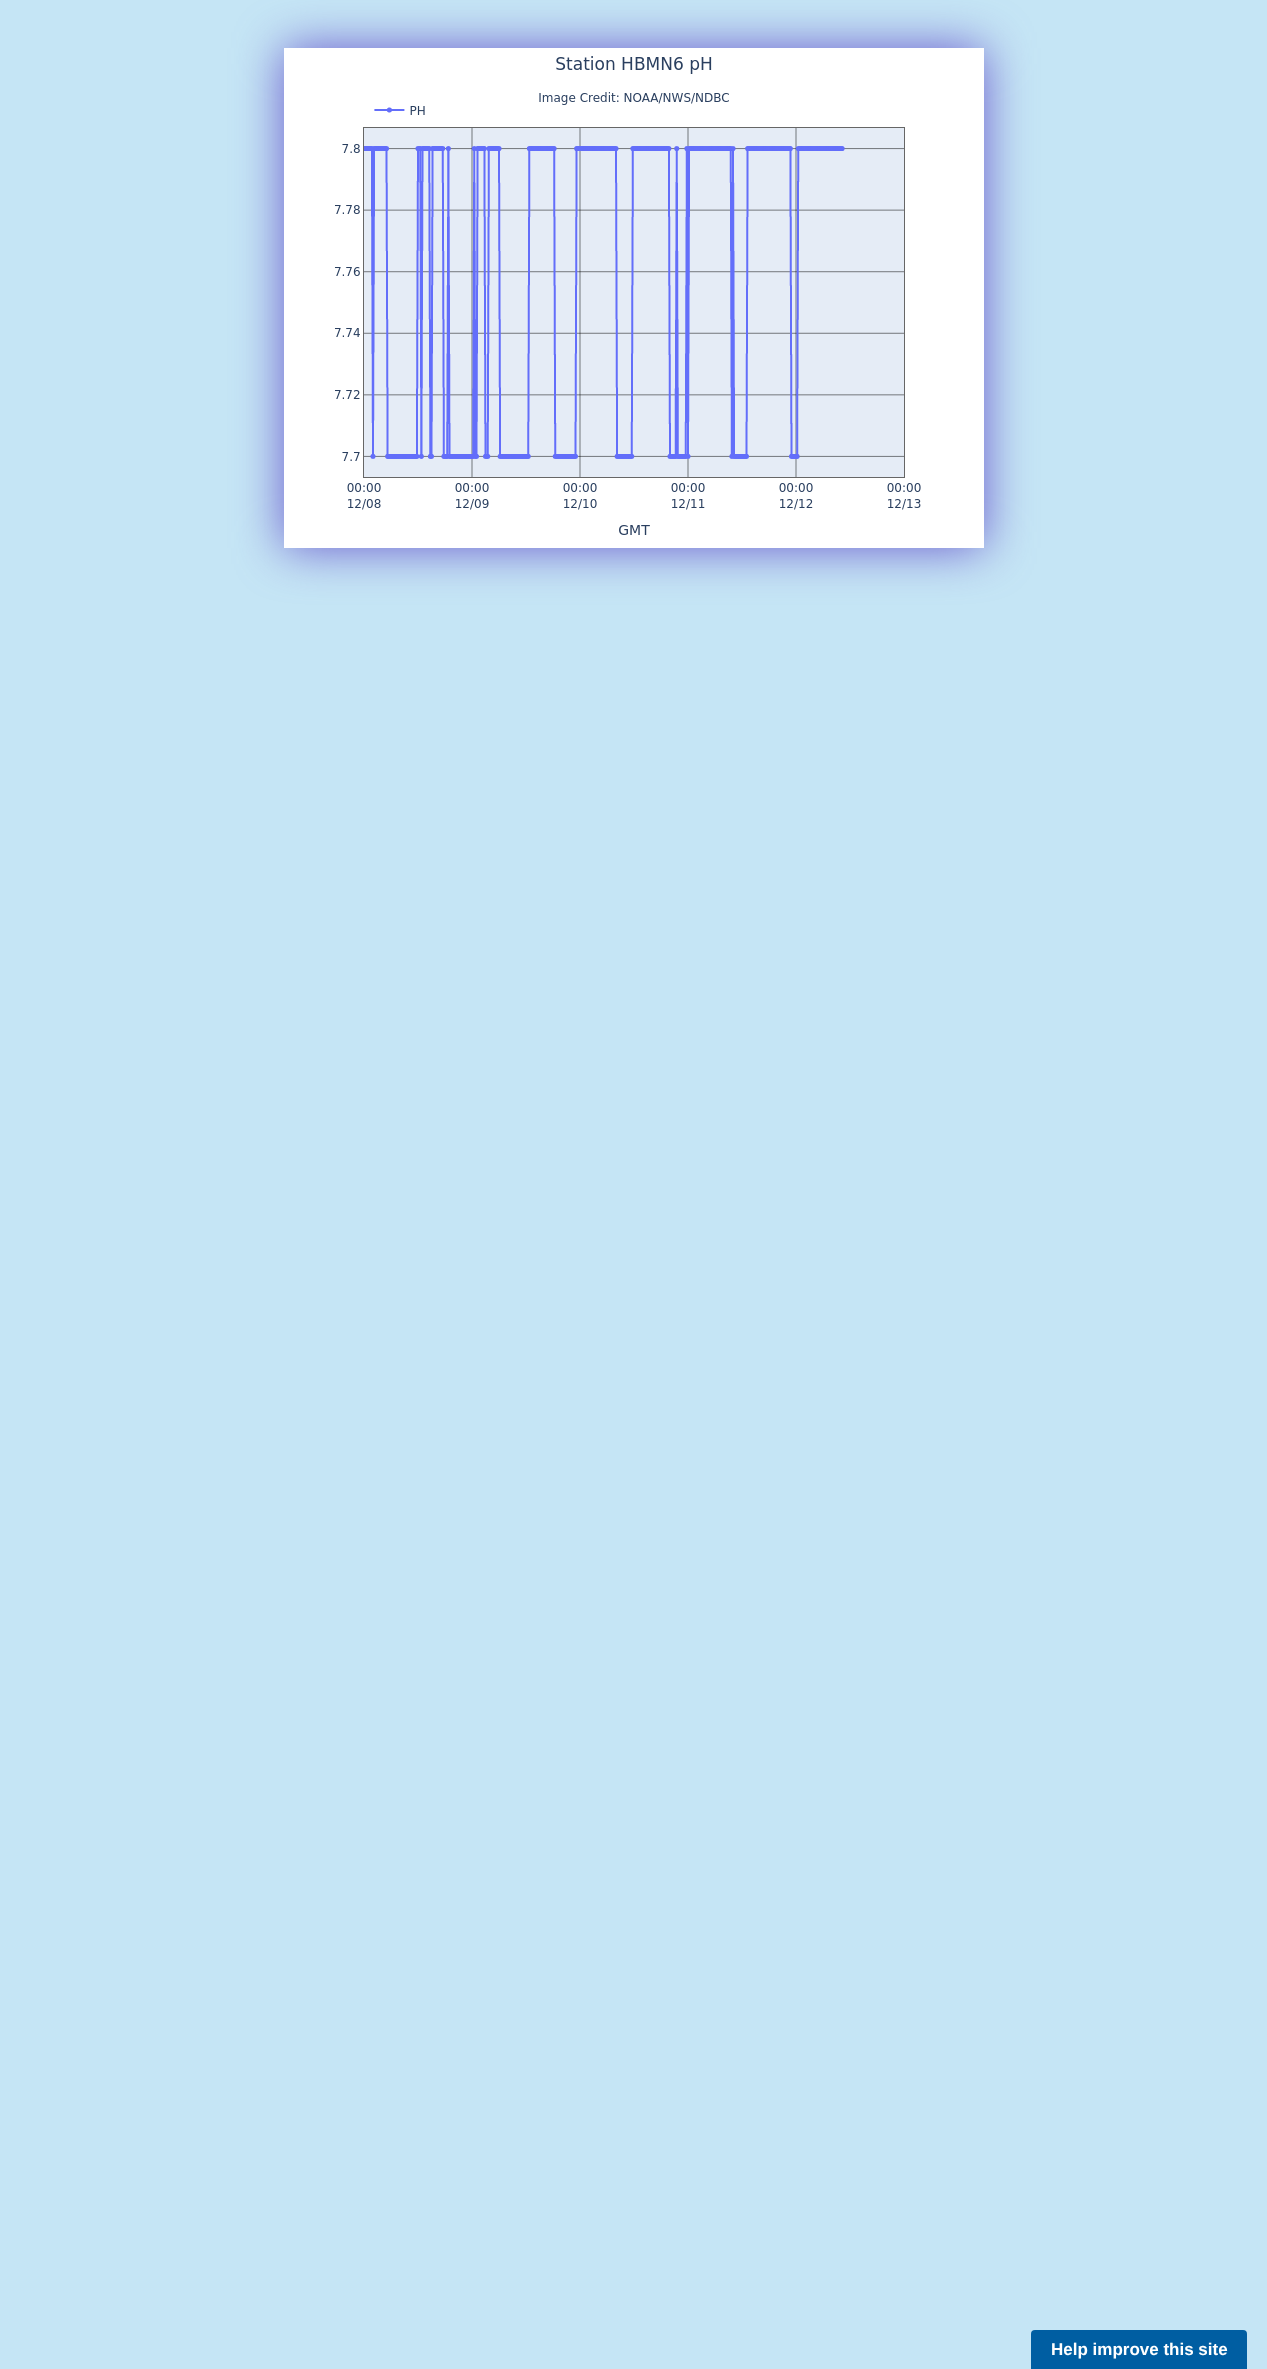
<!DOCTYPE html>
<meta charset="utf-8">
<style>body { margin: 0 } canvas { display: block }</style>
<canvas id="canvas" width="1267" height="2369"></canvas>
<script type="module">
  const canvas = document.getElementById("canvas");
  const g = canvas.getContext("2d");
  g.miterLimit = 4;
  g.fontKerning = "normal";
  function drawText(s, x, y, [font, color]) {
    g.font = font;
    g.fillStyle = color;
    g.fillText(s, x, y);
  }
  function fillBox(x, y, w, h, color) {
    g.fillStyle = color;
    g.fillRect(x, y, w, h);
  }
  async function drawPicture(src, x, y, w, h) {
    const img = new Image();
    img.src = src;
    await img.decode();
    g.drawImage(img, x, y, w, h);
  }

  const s1 = ["bold 17px Liberation Sans", "#FFFFFF"];

  fillBox(0, 0, 1267, 2369, "#C5E5F5");
  g.fillStyle = "#6A5ACD";
  g.filter = "blur(24px)";
  g.beginPath();
  g.rect(284, 48, 700, 500);
  g.fill();
  g.filter = "none";
  await drawPicture("pic1.png", 284, 48, 700, 500);
  g.fillStyle = "#005EA2";
  g.beginPath();
  g.roundRect(1031, 2330, 216, 39, [4, 4, 0, 0]);
  g.fill();
  drawText("Help improve this site", 1051, 2355, s1);
</script>
